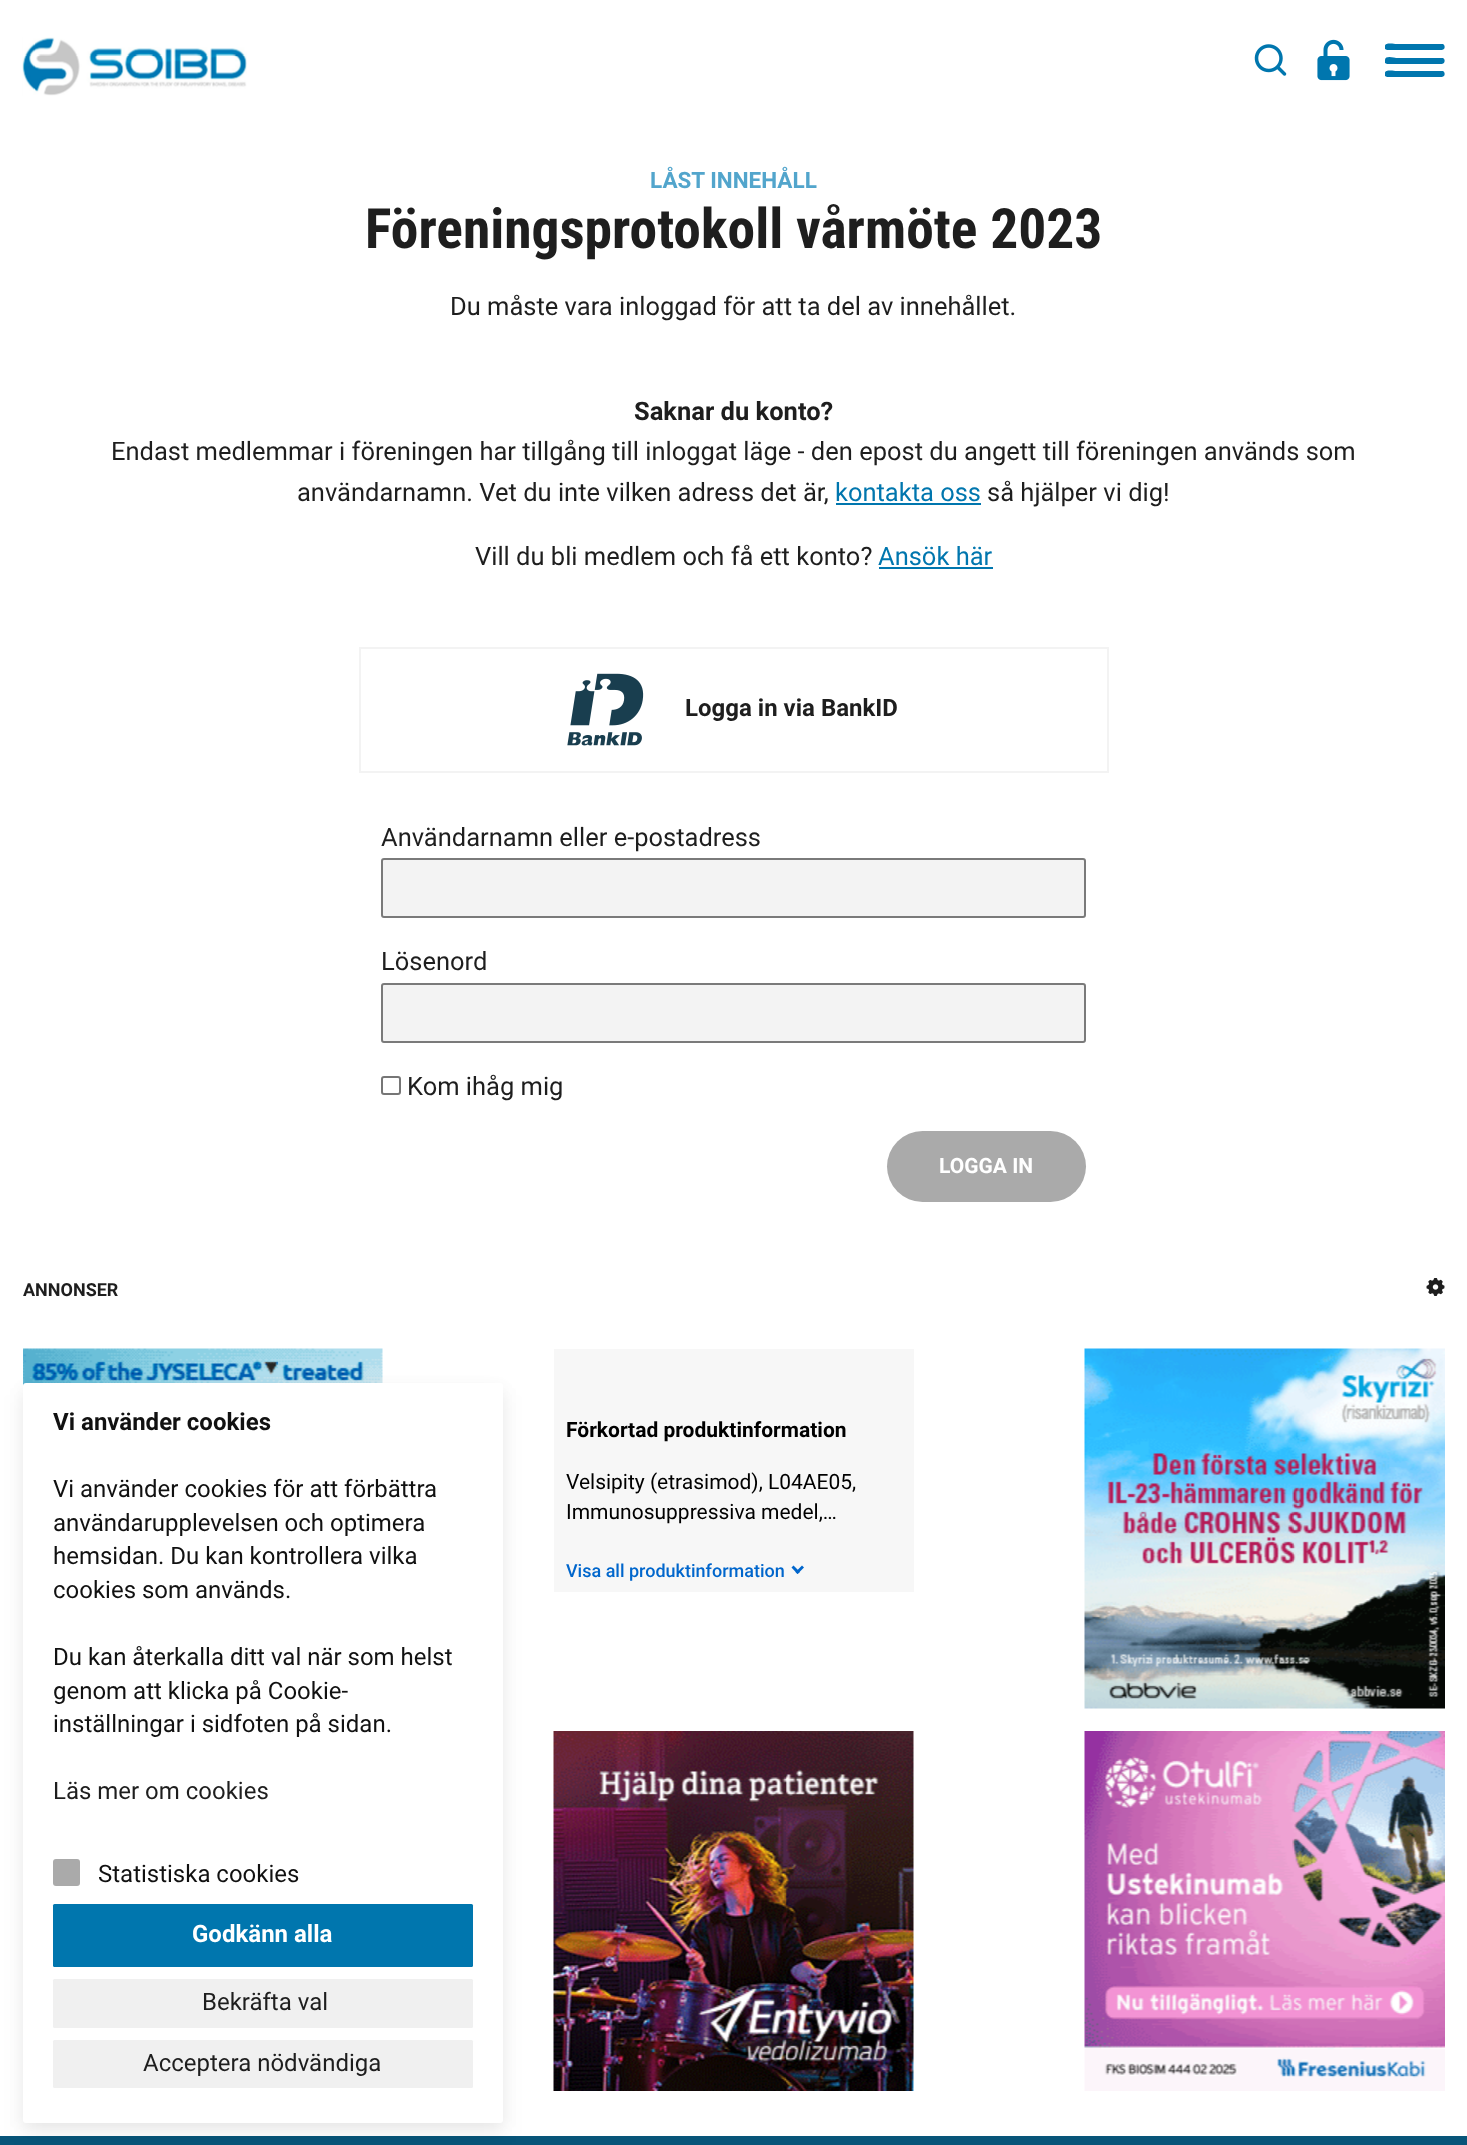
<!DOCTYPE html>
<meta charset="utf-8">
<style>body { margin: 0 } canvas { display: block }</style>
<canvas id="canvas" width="1467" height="2145"></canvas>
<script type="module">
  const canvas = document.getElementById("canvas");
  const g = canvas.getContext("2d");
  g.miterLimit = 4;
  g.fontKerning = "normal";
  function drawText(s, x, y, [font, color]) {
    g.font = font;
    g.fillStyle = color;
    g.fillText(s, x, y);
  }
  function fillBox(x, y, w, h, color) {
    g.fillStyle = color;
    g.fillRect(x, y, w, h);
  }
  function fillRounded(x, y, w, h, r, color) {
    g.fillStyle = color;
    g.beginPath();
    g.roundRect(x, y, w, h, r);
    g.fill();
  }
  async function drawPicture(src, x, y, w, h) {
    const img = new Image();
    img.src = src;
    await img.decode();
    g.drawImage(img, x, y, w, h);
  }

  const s1 = ["bold 22.5px Roboto", "#52A5CC"];
  const s2 = ["bold 55.5px Roboto Condensed", "#1E1E1E"];
  const s3 = ["25.5px Roboto", "#1E1E1E"];
  const s4 = ["bold 25.5px Roboto", "#1E1E1E"];
  const s5 = ["25.5px Roboto", "#0076AE"];
  const s6 = ["bold 24px Roboto", "#1E1E1E"];
  const s7 = ["bold 21px Roboto", "#FFFFFF"];
  const s8 = ["bold 18px Roboto", "#1E1E1E"];
  const s9 = ["bold 21px Roboto", "#000000"];
  const s10 = ["21px Roboto", "#000000"];
  const s11 = ["500 18px Roboto", "#0066CC"];
  const s12 = ["bold 24px Roboto", "#111111"];
  const s13 = ["24px Roboto", "#111111"];
  const s14 = ["24px Roboto", "#1E1E1E"];
  const s15 = ["bold 24px Roboto", "#FFFFFF"];

  fillBox(0, 0, 1467, 2145, "#FFFFFF");
  await drawPicture("pic1.png", 22, 37, 225, 59);
  await drawPicture("pic2.png", 1254, 44, 33, 32);
  await drawPicture("pic3.png", 1317, 39, 33, 42);
  g.fillStyle = "#0076AE";
  g.beginPath();
  g.moveTo(1442, 64);
  g.lineTo(1387, 64);
  g.lineTo(1385, 63);
  g.lineTo(1385, 60);
  g.bezierCurveTo(1385, 55, 1395, 58, 1396, 58);
  g.lineTo(1443, 58);
  g.bezierCurveTo(1445, 59, 1445, 61, 1444, 63);
  g.closePath();
  g.moveTo(1442, 77);
  g.lineTo(1387, 77);
  g.lineTo(1385, 76);
  g.lineTo(1385, 73);
  g.bezierCurveTo(1385, 69, 1395, 71, 1396, 71);
  g.lineTo(1443, 71);
  g.bezierCurveTo(1445, 72, 1445, 75, 1444, 76);
  g.closePath();
  g.moveTo(1442, 50);
  g.lineTo(1387, 50);
  g.lineTo(1385, 49);
  g.lineTo(1385, 46);
  g.bezierCurveTo(1385, 42, 1395, 44, 1396, 44);
  g.lineTo(1443, 44);
  g.bezierCurveTo(1445, 45, 1445, 48, 1444, 49);
  g.closePath();
  g.fill();
  drawText("LÅST INNEHÅLL", 650, 188, s1);
  drawText("Föreningsprotokoll vårmöte 2023", 365, 248, s2);
  drawText("Du måste vara inloggad för att ta del av innehållet.", 450, 315, s3);
  drawText("Saknar du konto?", 634, 420, s4);
  drawText("Endast medlemmar i föreningen har tillgång till inloggat läge - den epost du angett till föreningen används som", 111, 460, s3);
  drawText("användarnamn. Vet du inte vilken adress det är,", 297, 501, s3);
  drawText("kontakta oss", 835, 501, s5);
  fillBox(836, 503, 145, 2, "#0076AE");
  drawText("så hjälper vi dig!", 987, 501, s3);
  drawText("Vill du bli medlem och få ett konto?", 475, 565, s3);
  drawText("Ansök här", 878, 565, s5);
  fillBox(879, 567, 114, 2, "#0076AE");
  g.strokeStyle = "#F3F3F3";
  g.lineWidth = 2;
  g.strokeRect(360, 648, 748, 124);
  await drawPicture("pic4.png", 567, 673, 77, 73);
  drawText("Logga in via BankID", 685, 716, s6);
  drawText("Användarnamn eller e-postadress", 381, 846, s3);
  g.fillStyle = "#F3F3F3";
  g.beginPath();
  g.roundRect(382, 859, 703, 58, 2);
  g.fill();
  g.strokeStyle = "#7A7A7A";
  g.stroke();
  drawText("Lösenord", 381, 970, s3);
  g.fillStyle = "#F3F3F3";
  g.beginPath();
  g.roundRect(382, 984, 703, 58, 2);
  g.fill();
  g.stroke();
  g.beginPath();
  g.roundRect(382, 1077, 18, 17, 2);
  g.strokeStyle = "#767676";
  g.stroke();
  drawText("Kom ihåg mig", 407, 1095, s3);
  fillRounded(887, 1131, 199, 71, 35.5, "#AAAAAA");
  drawText("LOGGA IN", 939, 1173, s7);
  drawText("ANNONSER", 23, 1296, s8);
  await drawPicture("pic5.png", 1426, 1278, 19, 18);
  await drawPicture("pic6.png", 23, 1348, 360, 38);
  fillBox(554, 1349, 360, 243, "#F7F7F7");
  drawText("Förkortad produktinformation", 566, 1437, s9);
  drawText("Velsipity (etrasimod), L04AE05,", 566, 1489, s10);
  drawText("Immunosuppressiva medel,…", 566, 1519, s10);
  drawText("Visa all produktinformation", 566, 1577, s11);
  g.beginPath();
  g.moveTo(802, 1565.5);
  g.lineTo(804, 1567.5);
  g.lineTo(797.5, 1574);
  g.lineTo(795.5, 1572);
  g.closePath();
  g.fill();
  g.beginPath();
  g.moveTo(793.5, 1565.5);
  g.lineTo(800, 1572);
  g.lineTo(797.5, 1574);
  g.lineTo(791.5, 1567.5);
  g.closePath();
  g.fill();
  await drawPicture("pic7.png", 1084, 1348, 361, 361);
  await drawPicture("pic8.png", 553, 1731, 361, 360);
  await drawPicture("pic9.png", 1084, 1731, 361, 360);
  fillBox(0, 2136, 1467, 9, "#085579");
  g.fillStyle = "rgba(0, 0, 0, 0.05)";
  g.filter = "blur(11px)";
  g.beginPath();
  g.roundRect(23, 1395, 480, 740, 3);
  g.fill();
  g.filter = "none";
  g.filter = "blur(7.5px)";
  g.beginPath();
  g.roundRect(23, 1388, 480, 739, 3);
  g.fill();
  g.filter = "none";
  fillRounded(23, 1383, 480, 740, 3, "#FFFFFF");
  drawText("Vi använder cookies", 53, 1430, s12);
  drawText("Vi använder cookies för att förbättra", 53, 1497, s13);
  drawText("användarupplevelsen och optimera", 53, 1531, s13);
  drawText("hemsidan. Du kan kontrollera vilka", 53, 1564, s13);
  drawText("cookies som används.", 53, 1598, s13);
  drawText("Du kan återkalla ditt val när som helst", 53, 1665, s13);
  drawText("genom att klicka på Cookie-", 53, 1699, s13);
  drawText("inställningar i sidfoten på sidan.", 53, 1732, s13);
  drawText("Läs mer om cookies", 53, 1799, s14);
  fillRounded(53, 1859, 27, 27, 3, "#AAAAAA");
  drawText("Statistiska cookies", 98, 1882, s13);
  fillRounded(53, 1904, 420, 63, 1.5, "#0076AE");
  drawText("Godkänn alla", 192, 1942, s15);
  fillRounded(53, 1979, 420, 49, 1.5, "#F0F0F0");
  drawText("Bekräfta val", 202, 2010, s14);
  fillRounded(53, 2040, 420, 48, 1.5, "#F0F0F0");
  drawText("Acceptera nödvändiga", 143, 2071, s14);
</script>
